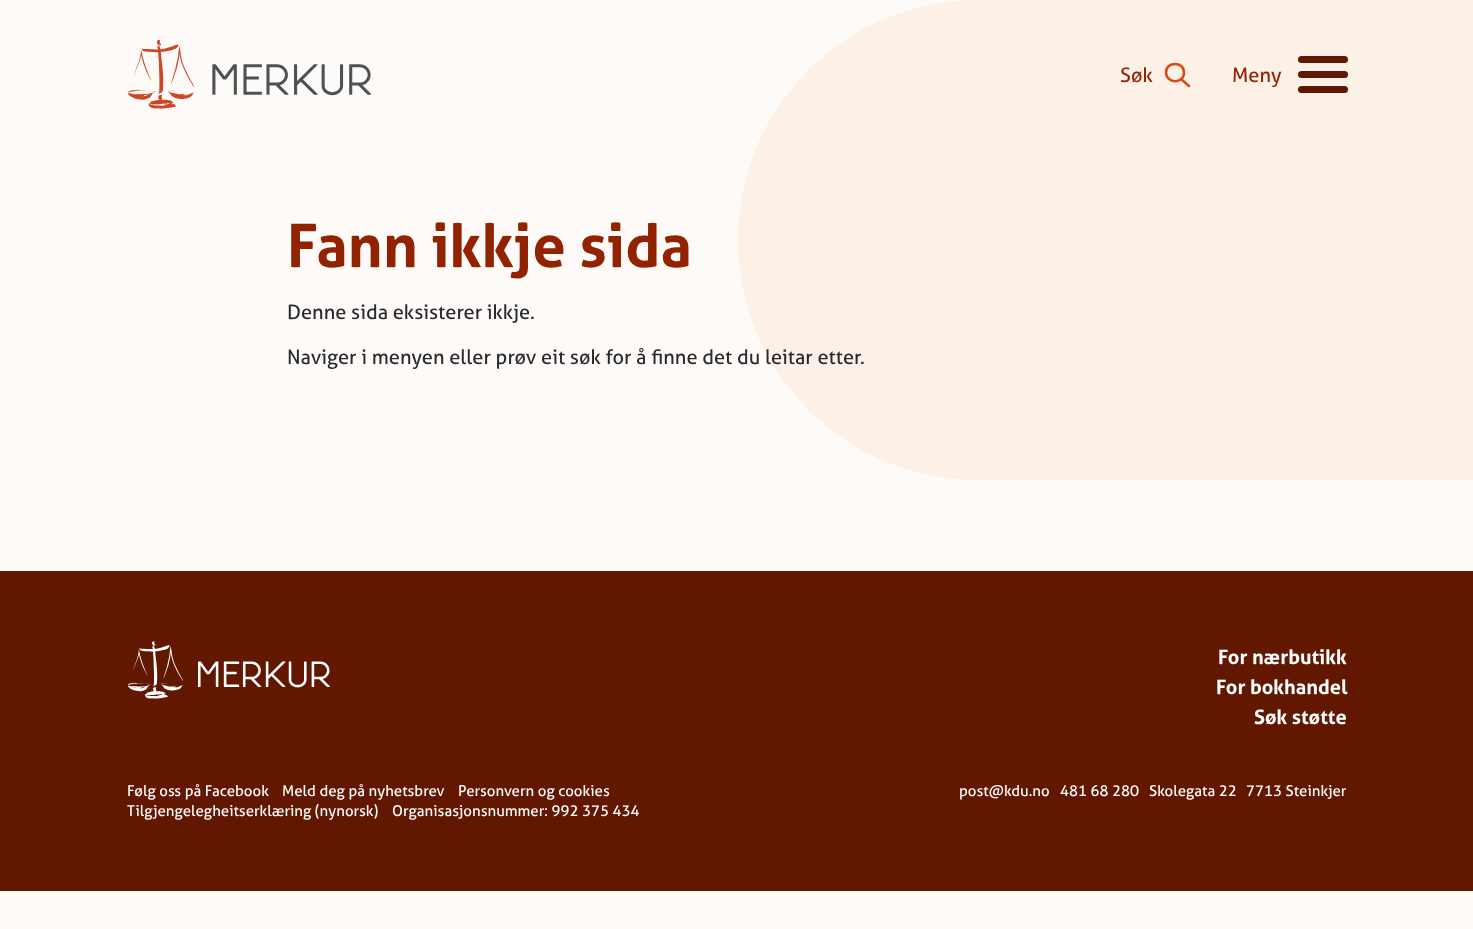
<!DOCTYPE html>
<meta charset="utf-8">
<style>body { margin: 0 } canvas { display: block }</style>
<canvas id="canvas" width="1473" height="929"></canvas>
<script type="module">
  const canvas = document.getElementById("canvas");
  const g = canvas.getContext("2d");
  g.miterLimit = 4;
  g.fontKerning = "normal";
  function drawText(s, x, y, [font, color]) {
    g.font = font;
    g.fillStyle = color;
    g.fillText(s, x, y);
  }
  function fillBox(x, y, w, h, color) {
    g.fillStyle = color;
    g.fillRect(x, y, w, h);
  }
  function fillRounded(x, y, w, h, r, color) {
    g.fillStyle = color;
    g.beginPath();
    g.roundRect(x, y, w, h, r);
    g.fill();
  }
  async function drawPicture(src, x, y, w, h) {
    const img = new Image();
    img.src = src;
    await img.decode();
    g.drawImage(img, x, y, w, h);
  }

  const s1 = ["20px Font", "#922300"];
  const s2 = ["bold 60px Font", "#922300"];
  const s3 = ["20px Font", "#292A2D"];
  const s4 = ["bold 20px Font", "#FFFFFF"];
  const s5 = ["15px Font", "#FFFFFF"];

  fillBox(0, 0, 1473, 929, "#FEFAF8");
  g.fillStyle = "#FCF0E7";
  g.beginPath();
  g.moveTo(978, 0);
  g.lineTo(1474, 0);
  g.lineTo(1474, 480);
  g.lineTo(978, 480);
  g.bezierCurveTo(845.5, 480, 738, 372.5, 738, 240);
  g.bezierCurveTo(738, 107.5, 845.5, 0, 978, 0);
  g.closePath();
  g.fill();
  await drawPicture("pic1.png", 128, 40, 243, 69);
  drawText("Søk", 1120, 82, s1);
  g.beginPath();
  g.moveTo(1189, 86);
  g.lineTo(1181, 79);
  g.moveTo(1184, 72.5);
  g.bezierCurveTo(1184, 84, 1166.5, 84, 1166, 72.5);
  g.bezierCurveTo(1166, 61, 1184, 61, 1184, 72.5);
  g.closePath();
  g.strokeStyle = "#DD4814";
  g.lineWidth = 2.5;
  g.lineCap = "round";
  g.lineJoin = "round";
  g.stroke();
  drawText("Meny", 1232, 82, s1);
  fillRounded(1298, 56, 50, 7, 3.5, "#621800");
  fillRounded(1298, 71, 50, 7, 3.5, "#621800");
  fillRounded(1298, 86, 50, 7, 3.5, "#621800");
  drawText("Fann ikkje sida", 287, 267, s2);
  drawText("Denne sida eksisterer ikkje.", 287, 319, s3);
  drawText("Naviger i menyen eller prøv eit søk for å finne det du leitar etter.", 287, 364, s3);
  fillBox(0, 571, 1473, 320, "#621800");
  await drawPicture("pic2.png", 128, 641, 202, 58);
  drawText("For nærbutikk", 1218, 664, s4);
  drawText("For bokhandel", 1216, 694, s4);
  drawText("Søk støtte", 1254, 724, s4);
  drawText("Følg oss på Facebook", 127, 796, s5);
  drawText("Meld deg på nyhetsbrev", 282, 796, s5);
  drawText("Personvern og cookies", 458, 796, s5);
  drawText("Tilgjengelegheitserklæring (nynorsk)", 127, 816, s5);
  drawText("Organisasjonsnummer: 992 375 434", 392, 816, s5);
  drawText("post@kdu.no", 959, 796, s5);
  drawText("481 68 280", 1060, 796, s5);
  drawText("Skolegata 22", 1149, 796, s5);
  drawText("7713 Steinkjer", 1246, 796, s5);
</script>
